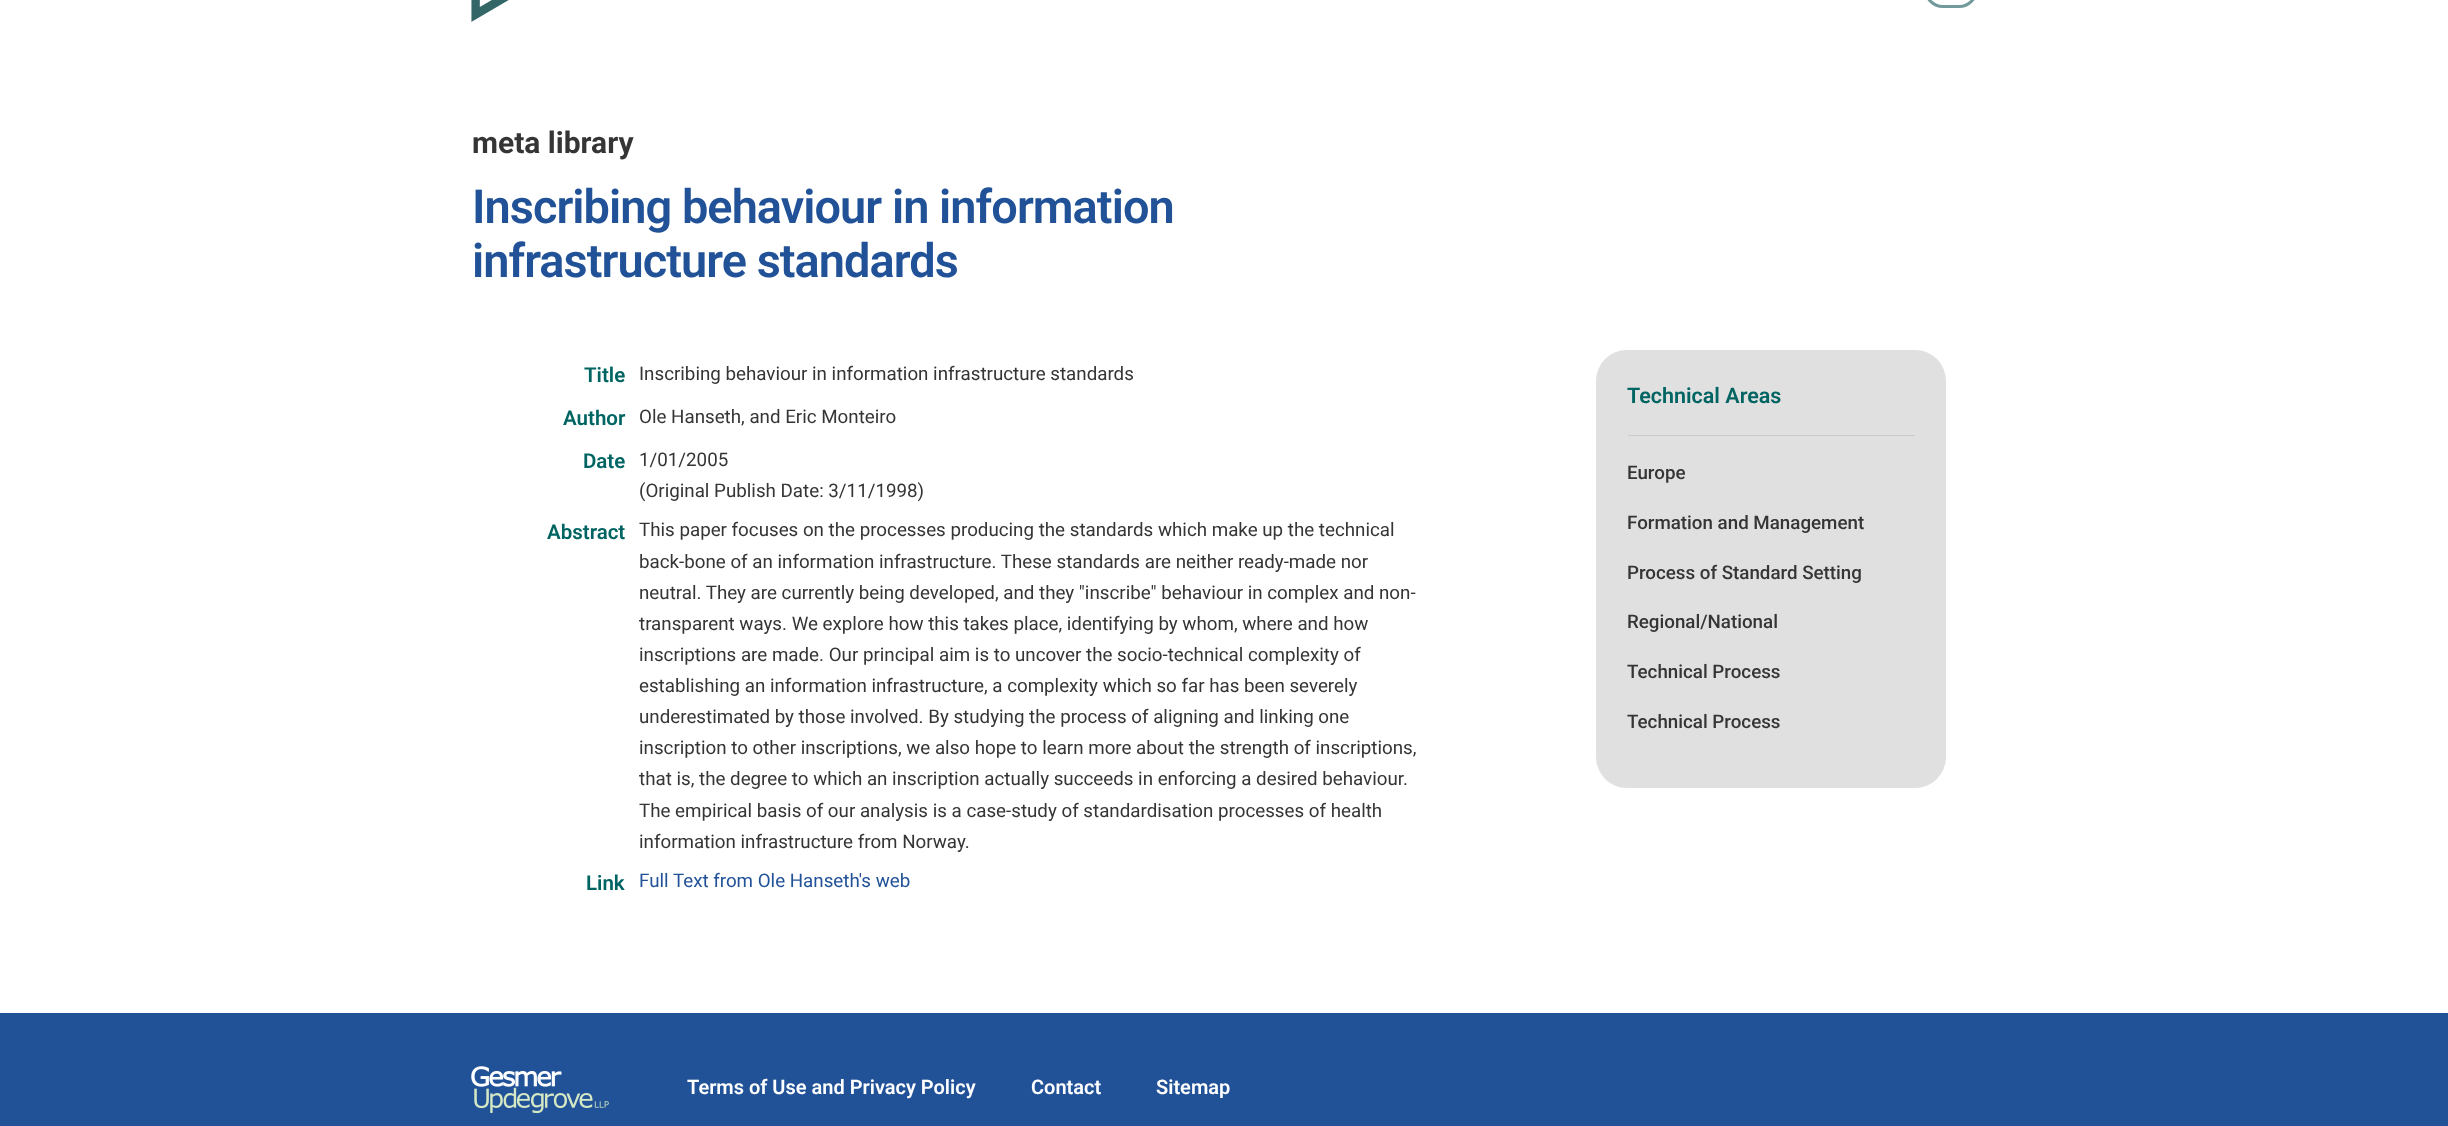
<!DOCTYPE html>
<meta charset="utf-8">
<style>body { margin: 0 } canvas { display: block }</style>
<canvas id="canvas" width="2448" height="1126"></canvas>
<script type="module">
  const canvas = document.getElementById("canvas");
  const g = canvas.getContext("2d");
  g.miterLimit = 4;
  g.fontKerning = "normal";
  function drawText(s, x, y, [font, color]) {
    g.font = font;
    g.fillStyle = color;
    g.fillText(s, x, y);
  }
  function fillBox(x, y, w, h, color) {
    g.fillStyle = color;
    g.fillRect(x, y, w, h);
  }
  function fillRounded(x, y, w, h, r, color) {
    g.fillStyle = color;
    g.beginPath();
    g.roundRect(x, y, w, h, r);
    g.fill();
  }
  async function drawPicture(src, x, y, w, h) {
    const img = new Image();
    img.src = src;
    await img.decode();
    g.drawImage(img, x, y, w, h);
  }

  const s1 = ["bold 30px Roboto", "#343534"];
  const s2 = ["600 46.9px Roboto", "#215298"];
  const s3 = ["600 20.5px Roboto", "#006463"];
  const s4 = ["18.75px Roboto", "#343534"];
  const s5 = ["18.75px Roboto", "#215298"];
  const s6 = ["600 21.5px Roboto", "#006463"];
  const s7 = ["500 18.75px Roboto", "#343534"];
  const s8 = ["600 20px Roboto", "#FFFFFF"];

  fillBox(0, 0, 2448, 1126, "#FFFFFF");
  g.beginPath();
  g.roundRect(1925.5, -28.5, 51, 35, 25.5);
  g.strokeStyle = "#739A9B";
  g.lineWidth = 3;
  g.stroke();
  await drawPicture("pic1.png", 471, 0, 38, 22);
  drawText("meta library", 472, 153, s1);
  g.letterSpacing = "-0.95px";
  drawText("Inscribing behaviour in information", 472, 223, s2);
  drawText("infrastructure standards", 472, 277, s2);
  g.letterSpacing = "0px";
  drawText("Title", 584, 382, s3);
  drawText("Inscribing behaviour in information infrastructure standards", 639, 380, s4);
  drawText("Author", 563, 425, s3);
  drawText("Ole Hanseth, and Eric Monteiro", 639, 423, s4);
  drawText("Date", 583, 468, s3);
  drawText("1/01/2005", 639, 466, s4);
  drawText("(Original Publish Date: 3/11/1998)", 639, 497, s4);
  drawText("Abstract", 547, 539, s3);
  drawText("This paper focuses on the processes producing the standards which make up the technical", 639, 536, s4);
  drawText("back-bone of an information infrastructure. These standards are neither ready-made nor", 639, 568, s4);
  drawText("neutral. They are currently being developed, and they \"inscribe\" behaviour in complex and non-", 639, 599, s4);
  drawText("transparent ways. We explore how this takes place, identifying by whom, where and how", 639, 630, s4);
  drawText("inscriptions are made. Our principal aim is to uncover the socio-technical complexity of", 639, 661, s4);
  drawText("establishing an information infrastructure, a complexity which so far has been severely", 639, 692, s4);
  drawText("underestimated by those involved. By studying the process of aligning and linking one", 639, 723, s4);
  drawText("inscription to other inscriptions, we also hope to learn more about the strength of inscriptions,", 639, 754, s4);
  drawText("that is, the degree to which an inscription actually succeeds in enforcing a desired behaviour.", 639, 785, s4);
  drawText("The empirical basis of our analysis is a case-study of standardisation processes of health", 639, 817, s4);
  drawText("information infrastructure from Norway.", 639, 848, s4);
  drawText("Link", 586, 890, s3);
  drawText("Full Text from Ole Hanseth's web", 639, 887, s5);
  fillRounded(1596, 350, 350, 438, 31, "#E0E0E0");
  fillBox(1628, 435, 287, 1, "#CACACA");
  drawText("Technical Areas", 1627, 403, s6);
  drawText("Europe", 1627, 479, s7);
  drawText("Formation and Management", 1627, 529, s7);
  drawText("Process of Standard Setting", 1627, 579, s7);
  drawText("Regional/National", 1627, 628, s7);
  drawText("Technical Process", 1627, 678, s7);
  drawText("Technical Process", 1627, 728, s7);
  fillBox(0, 1013, 2448, 113, "#215298");
  await drawPicture("pic2.png", 471, 1066, 138, 48);
  drawText("Terms of Use and Privacy Policy", 687, 1094, s8);
  drawText("Contact", 1031, 1094, s8);
  drawText("Sitemap", 1156, 1094, s8);
</script>
